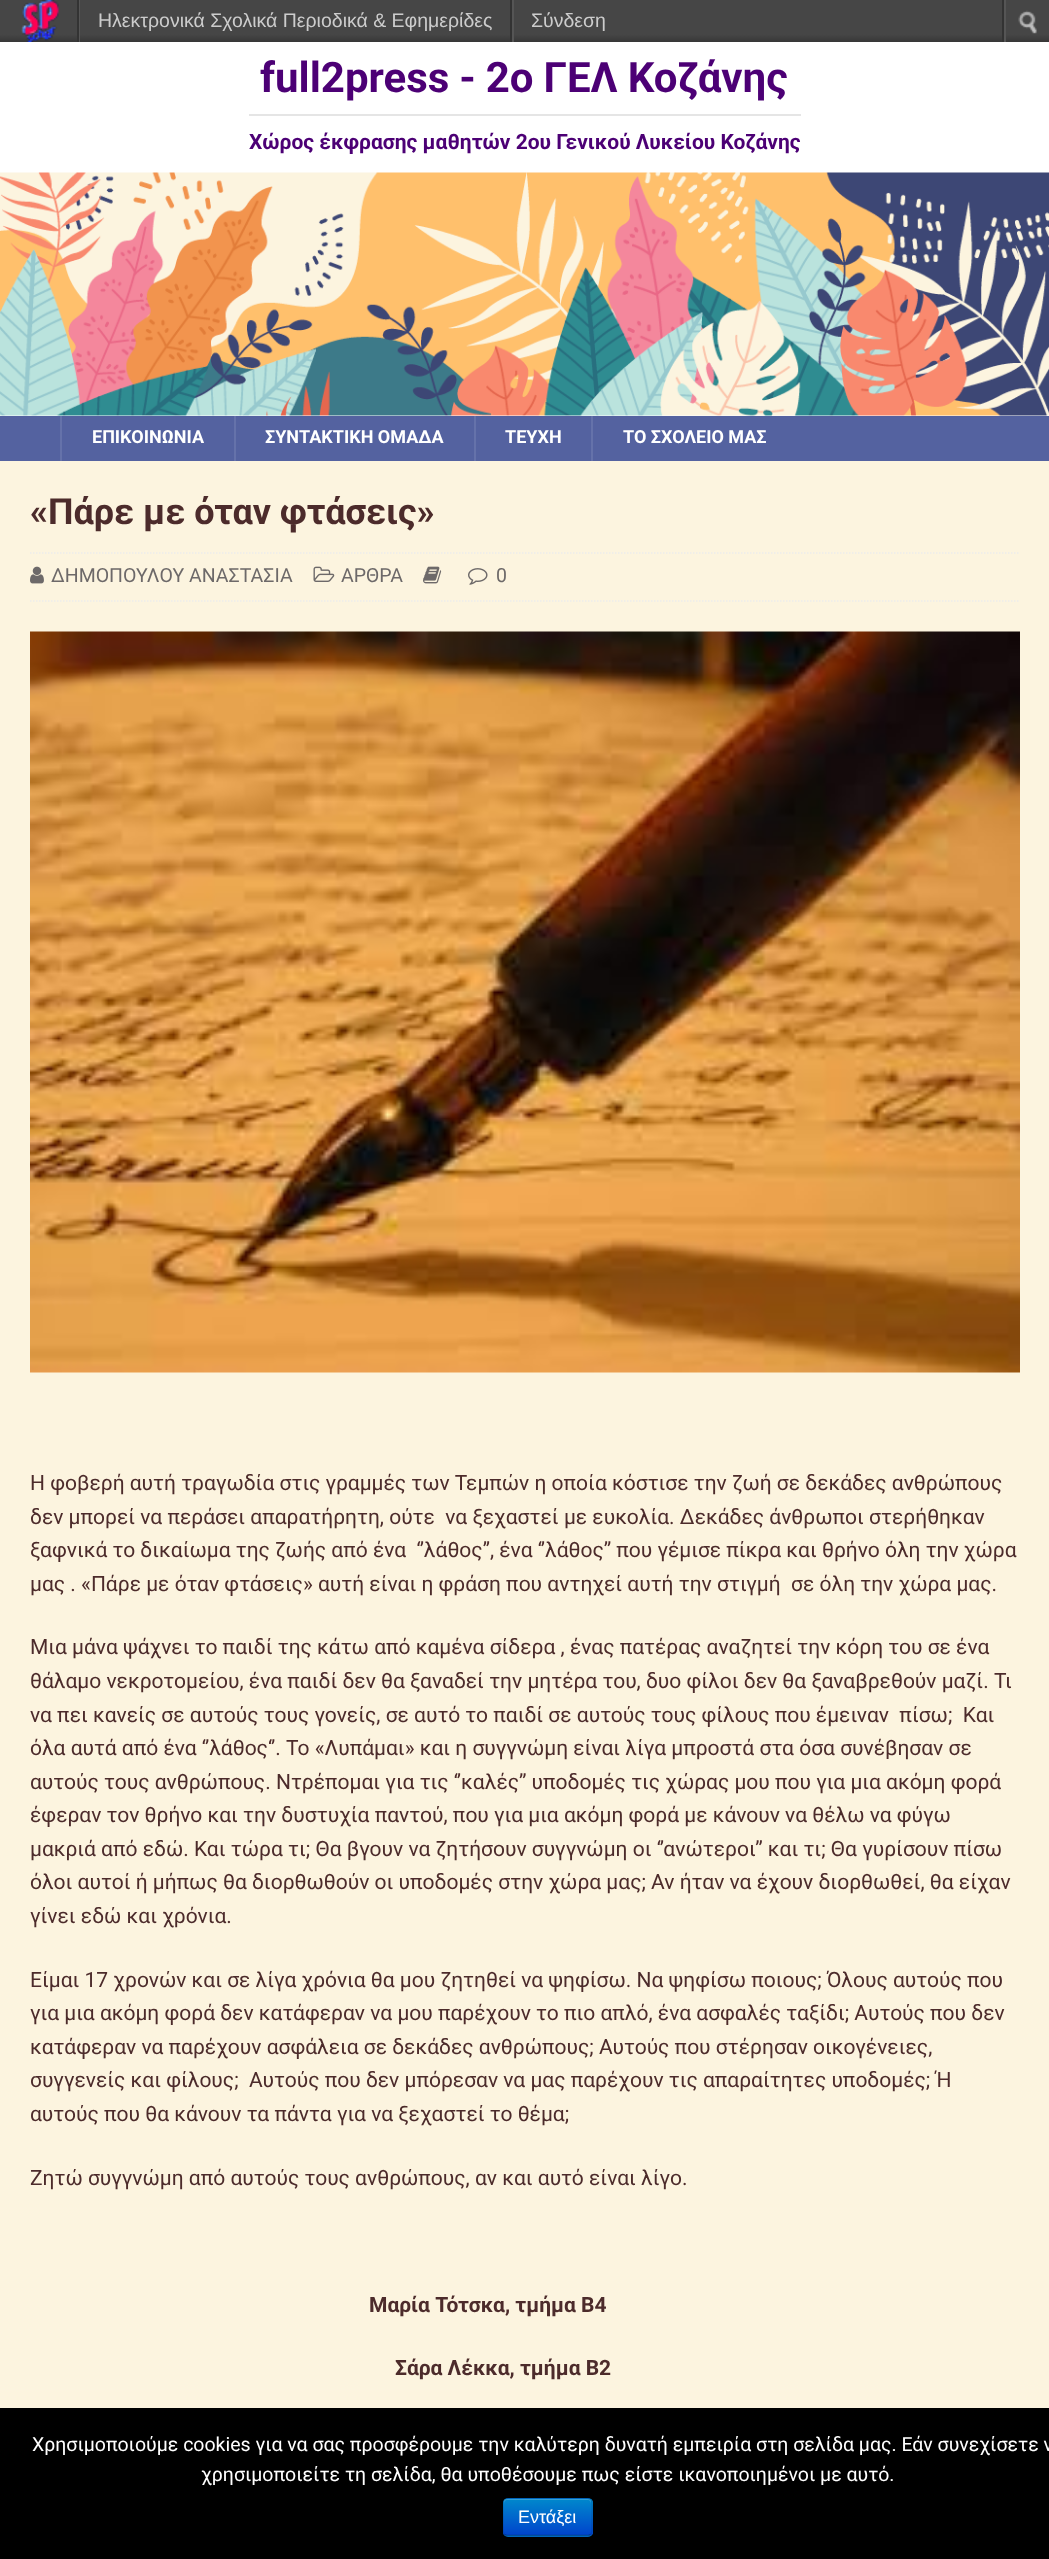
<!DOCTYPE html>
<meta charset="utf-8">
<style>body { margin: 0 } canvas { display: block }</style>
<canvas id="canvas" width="1049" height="2559"></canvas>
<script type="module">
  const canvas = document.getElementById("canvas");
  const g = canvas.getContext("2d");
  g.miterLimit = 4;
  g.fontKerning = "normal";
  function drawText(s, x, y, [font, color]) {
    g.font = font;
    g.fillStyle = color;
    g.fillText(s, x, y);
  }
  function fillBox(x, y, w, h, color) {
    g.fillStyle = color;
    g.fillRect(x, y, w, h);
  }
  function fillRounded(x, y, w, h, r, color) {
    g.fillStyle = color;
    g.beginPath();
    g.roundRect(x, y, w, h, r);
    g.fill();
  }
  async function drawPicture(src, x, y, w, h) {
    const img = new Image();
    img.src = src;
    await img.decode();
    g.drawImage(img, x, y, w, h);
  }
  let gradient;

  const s1 = ["19.5px Liberation Sans", "#CCCCCC"];
  const s2 = ["bold 42px Roboto", "#4C0075"];
  const s3 = ["bold 21px Roboto", "#4C0075"];
  const s4 = ["bold 18px Roboto", "#FFFFFF"];
  const s5 = ["bold 36px Roboto", "#4C2B2B"];
  const s6 = ["19.5px Roboto", "#6D6969"];
  const s7 = ["21px Roboto", "#4C2B2B"];
  const s8 = ["bold 21px Roboto", "#4C2B2B"];
  const s9 = ["19.5px Roboto", "#FFFFFF"];
  const s10 = ["18px Liberation Sans", "#FFFFFF"];

  fillBox(0, 0, 1049, 2559, "#FFFFFF");
  gradient = g.createLinearGradient(525, 42, 525, 0);
  gradient.addColorStop(0, "#373737");
  gradient.addColorStop(0.18, "#464646");
  g.fillStyle = gradient;
  g.fillRect(0, 0, 1002, 42);
  fillBox(79, 0, 1, 42, "#555555");
  fillBox(77, 0, 2, 42, "#333333");
  await drawPicture("pic1.png", 21, 0, 38, 42);
  fillBox(512, 0, 2, 42, "#555555");
  fillBox(510, 0, 2, 42, "#333333");
  drawText("Ηλεκτρονικά Σχολικά Περιοδικά & Εφημερίδες", 98, 27, s1);
  drawText("Σύνδεση", 531, 27, s1);
  gradient = g.createLinearGradient(1026, 42, 1026, 0);
  gradient.addColorStop(0, "#373737");
  gradient.addColorStop(0.18, "#464646");
  g.fillStyle = gradient;
  g.fillRect(1006, 0, 43, 42);
  fillBox(1002, 0, 2, 42, "#333333");
  fillBox(1004, 0, 2, 42, "#555555");
  await drawPicture("pic2.png", 1018, 10, 19, 24);
  g.wordSpacing = "-0.5px";
  drawText("full2press - 2o ΓΕΛ Κοζάνης", 260, 92, s2);
  fillBox(249, 114, 552, 2, "#E5E5E5");
  g.wordSpacing = "0px";
  drawText("Χώρος έκφρασης μαθητών 2ου Γενικού Λυκείου Κοζάνης", 249, 149, s3);
  await drawPicture("pic3.png", 0, 172, 1049, 244);
  fillBox(0, 416, 1049, 45, "#5462A0");
  fillBox(60, 416, 2, 45, "#6572AA");
  drawText("ΕΠΙΚΟΙΝΩΝΙΑ", 92, 443, s4);
  fillBox(234, 416, 2, 45, "#6572AA");
  drawText("ΣΥΝΤΑΚΤΙΚΗ ΟΜΑΔΑ", 265, 443, s4);
  fillBox(474, 416, 2, 45, "#6572AA");
  drawText("ΤΕΥΧΗ", 505, 443, s4);
  fillBox(591, 416, 2, 45, "#6572AA");
  drawText("ΤΟ ΣΧΟΛΕΙΟ ΜΑΣ", 623, 443, s4);
  fillBox(0, 461, 1049, 1947, "#FCF4DF");
  drawText("«Πάρε με όταν φτάσεις»", 30, 524, s5);
  g.beginPath();
  g.moveTo(30, 553);
  g.lineTo(1020, 553);
  g.strokeStyle = "#EBEBEB";
  g.lineWidth = 1.5;
  g.setLineDash([1.5, 1.5]);
  g.stroke();
  g.beginPath();
  g.moveTo(30, 601);
  g.lineTo(1020, 601);
  g.stroke();
  await drawPicture("pic4.png", 30, 566, 14, 18);
  drawText("ΔΗΜΟΠΟΥΛΟΥ ΑΝΑΣΤΑΣΙΑ", 51, 582, s6);
  await drawPicture("pic5.png", 313, 566, 22, 16);
  drawText("ΑΡΘΡΑ", 341, 582, s6);
  await drawPicture("pic6.png", 423, 566, 19, 18);
  await drawPicture("pic7.png", 468, 568, 20, 17);
  drawText("0", 496, 582, s6);
  await drawPicture("pic8.png", 30, 631, 990, 742);
  drawText("Η φοβερή αυτή τραγωδία στις γραμμές των Τεμπών η οποία κόστισε την ζωή σε δεκάδες ανθρώπους", 30, 1490, s7);
  drawText("δεν μπορεί να περάσει απαρατήρητη, ούτε  να ξεχαστεί με ευκολία. Δεκάδες άνθρωποι στερήθηκαν", 30, 1524, s7);
  drawText("ξαφνικά το δικαίωμα της ζωής από ένα  ‘’λάθος’’, ένα ‘’λάθος’’ που γέμισε πίκρα και θρήνο όλη την χώρα", 30, 1557, s7);
  drawText("μας . «Πάρε με όταν φτάσεις» αυτή είναι η φράση που αντηχεί αυτή την στιγμή  σε όλη την χώρα μας.", 30, 1591, s7);
  drawText("Μια μάνα ψάχνει το παιδί της κάτω από καμένα σίδερα , ένας πατέρας αναζητεί την κόρη του σε ένα", 30, 1654, s7);
  drawText("θάλαμο νεκροτομείου, ένα παιδί δεν θα ξαναδεί την μητέρα του, δυο φίλοι δεν θα ξαναβρεθούν μαζί. Τι", 30, 1688, s7);
  drawText("να πει κανείς σε αυτούς τους γονείς, σε αυτό το παιδί σε αυτούς τους φίλους που έμειναν  πίσω;  Και", 30, 1722, s7);
  drawText("όλα αυτά από ένα ‘’λάθος‘’. Το «Λυπάμαι» και η συγγνώμη είναι λίγα μπροστά στα όσα συνέβησαν σε", 30, 1755, s7);
  drawText("αυτούς τους ανθρώπους. Ντρέπομαι για τις ‘’καλές’’ υποδομές τις χώρας μου που για μια ακόμη φορά", 30, 1789, s7);
  drawText("έφεραν τον θρήνο και την δυστυχία παντού, που για μια ακόμη φορά με κάνουν να θέλω να φύγω", 30, 1822, s7);
  drawText("μακριά από εδώ. Και τώρα τι; Θα βγουν να ζητήσουν συγγνώμη οι ‘’ανώτεροι’’ και τι; Θα γυρίσουν πίσω", 30, 1856, s7);
  drawText("όλοι αυτοί ή μήπως θα διορθωθούν οι υποδομές στην χώρα μας; Αν ήταν να έχουν διορθωθεί, θα είχαν", 30, 1889, s7);
  drawText("γίνει εδώ και χρόνια.", 30, 1923, s7);
  drawText("Είμαι 17 χρονών και σε λίγα χρόνια θα μου ζητηθεί να ψηφίσω. Να ψηφίσω ποιους; Όλους αυτούς που", 30, 1987, s7);
  drawText("για μια ακόμη φορά δεν κατάφεραν να μου παρέχουν το πιο απλό, ένα ασφαλές ταξίδι; Αυτούς που δεν", 30, 2020, s7);
  drawText("κατάφεραν να παρέχουν ασφάλεια σε δεκάδες ανθρώπους; Αυτούς που στέρησαν οικογένειες,", 30, 2054, s7);
  drawText("συγγενείς και φίλους;  Αυτούς που δεν μπόρεσαν να μας παρέχουν τις απαραίτητες υποδομές; Ή", 30, 2087, s7);
  drawText("αυτούς που θα κάνουν τα πάντα για να ξεχαστεί το θέμα;", 30, 2121, s7);
  drawText("Ζητώ συγγνώμη από αυτούς τους ανθρώπους, αν και αυτό είναι λίγο.", 30, 2185, s7);
  drawText("Μαρία Τότσκα, τμήμα Β4", 369, 2312, s8);
  drawText("Σάρα Λέκκα, τμήμα Β2", 395, 2375, s8);
  fillBox(0, 2408, 1049, 151, "#000000");
  drawText("Χρησιμοποιούμε cookies για να σας προσφέρουμε την καλύτερη δυνατή εμπειρία στη σελίδα μας. Εάν συνεχίσετε ν", 32, 2451, s9);
  drawText("χρησιμοποιείτε τη σελίδα, θα υποθέσουμε πως είστε ικανοποιημένοι με αυτό.", 201, 2481, s9);
  fillRounded(503, 2498, 90, 39, 5, "#006DCC");
  g.save();
  g.beginPath();
  g.roundRect(503, 2498, 90, 39, 5);
  g.clip();
  gradient = g.createLinearGradient(548, 2499, 548, 2535);
  gradient.addColorStop(0, "#0088CC");
  gradient.addColorStop(1, "#0044CC");
  g.fillStyle = gradient;
  g.fillRect(503, 2499, 90, 36);
  g.restore();
  g.fillStyle = "rgba(255, 255, 255, 0.2)";
  g.beginPath();
  g.moveTo(507, 2500);
  g.lineTo(588, 2500);
  g.bezierCurveTo(590, 2500, 591, 2502, 591, 2504);
  g.lineTo(591, 2502);
  g.bezierCurveTo(591, 2500, 590, 2499, 588, 2499);
  g.lineTo(507, 2499);
  g.bezierCurveTo(505, 2499, 504, 2500, 504, 2502);
  g.lineTo(504, 2504);
  g.bezierCurveTo(504, 2502, 505, 2500, 507, 2500);
  g.closePath();
  g.fill();
  g.beginPath();
  g.moveTo(590.5, 2534.5);
  g.lineTo(588.5, 2535.5);
  g.lineTo(506.5, 2535.5);
  g.lineTo(504.5, 2534.5);
  g.strokeStyle = "rgba(0, 0, 0, 0.25)";
  g.setLineDash([]);
  g.stroke();
  g.beginPath();
  g.moveTo(504.5, 2534.5);
  g.bezierCurveTo(502.5, 2533, 503, 2529, 503, 2527);
  g.lineTo(503, 2517);
  g.bezierCurveTo(503, 2496, 499.5, 2498, 520.5, 2498);
  g.lineTo(574.5, 2498);
  g.bezierCurveTo(595.5, 2498, 592, 2496, 592, 2517);
  g.lineTo(592, 2527);
  g.bezierCurveTo(592, 2529, 592.5, 2533, 590.5, 2534.5);
  g.strokeStyle = "rgba(0, 0, 0, 0.1)";
  g.stroke();
  drawText("Εντάξει", 518, 2523, s10);
</script>
